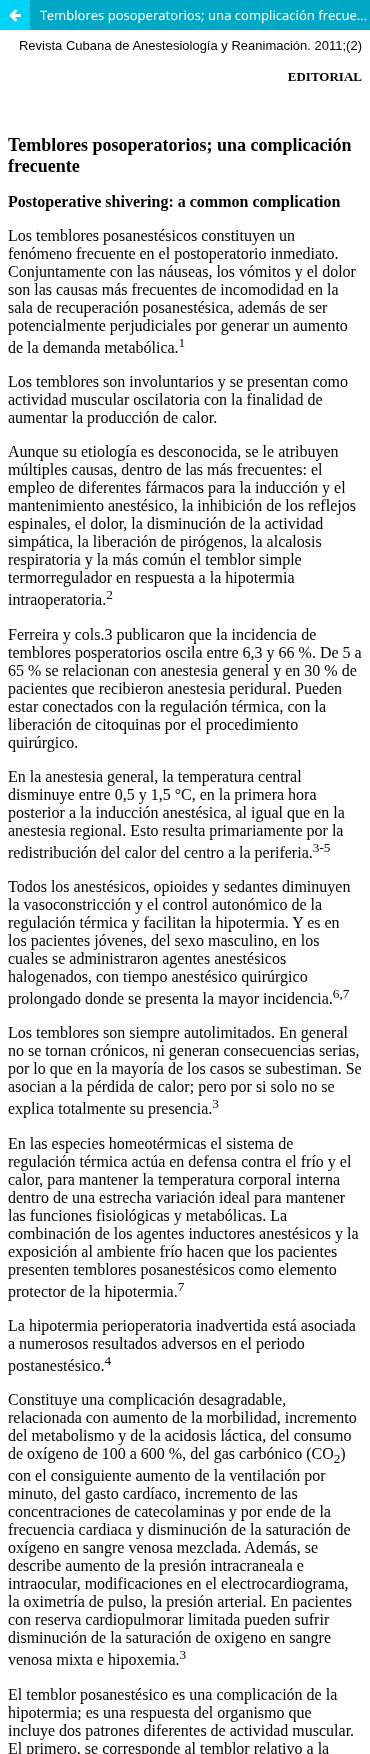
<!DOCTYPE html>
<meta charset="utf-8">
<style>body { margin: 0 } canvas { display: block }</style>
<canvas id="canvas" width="370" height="1754"></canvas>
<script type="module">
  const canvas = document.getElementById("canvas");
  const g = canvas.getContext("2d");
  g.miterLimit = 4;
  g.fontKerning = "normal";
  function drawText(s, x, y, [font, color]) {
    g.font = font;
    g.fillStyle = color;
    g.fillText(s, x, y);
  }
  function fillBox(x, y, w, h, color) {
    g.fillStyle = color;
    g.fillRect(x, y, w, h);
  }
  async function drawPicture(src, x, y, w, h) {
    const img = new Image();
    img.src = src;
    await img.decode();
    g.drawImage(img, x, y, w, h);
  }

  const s1 = ["13px Noto Sans", "#FFFFFF"];

  fillBox(0, 0, 370, 1754, "#FFFFFF");
  fillBox(30, 0, 340, 30, "#00A8C5");
  fillBox(0, 0, 30, 30, "#00D3F8");
  await drawPicture("pic1.png", 9, 9, 12, 13);
  drawText("Temblores posoperatorios; una complicación frecue…", 40, 20, s1);
  await drawPicture("pic2.png", 8, 41, 354, 1713);
</script>
